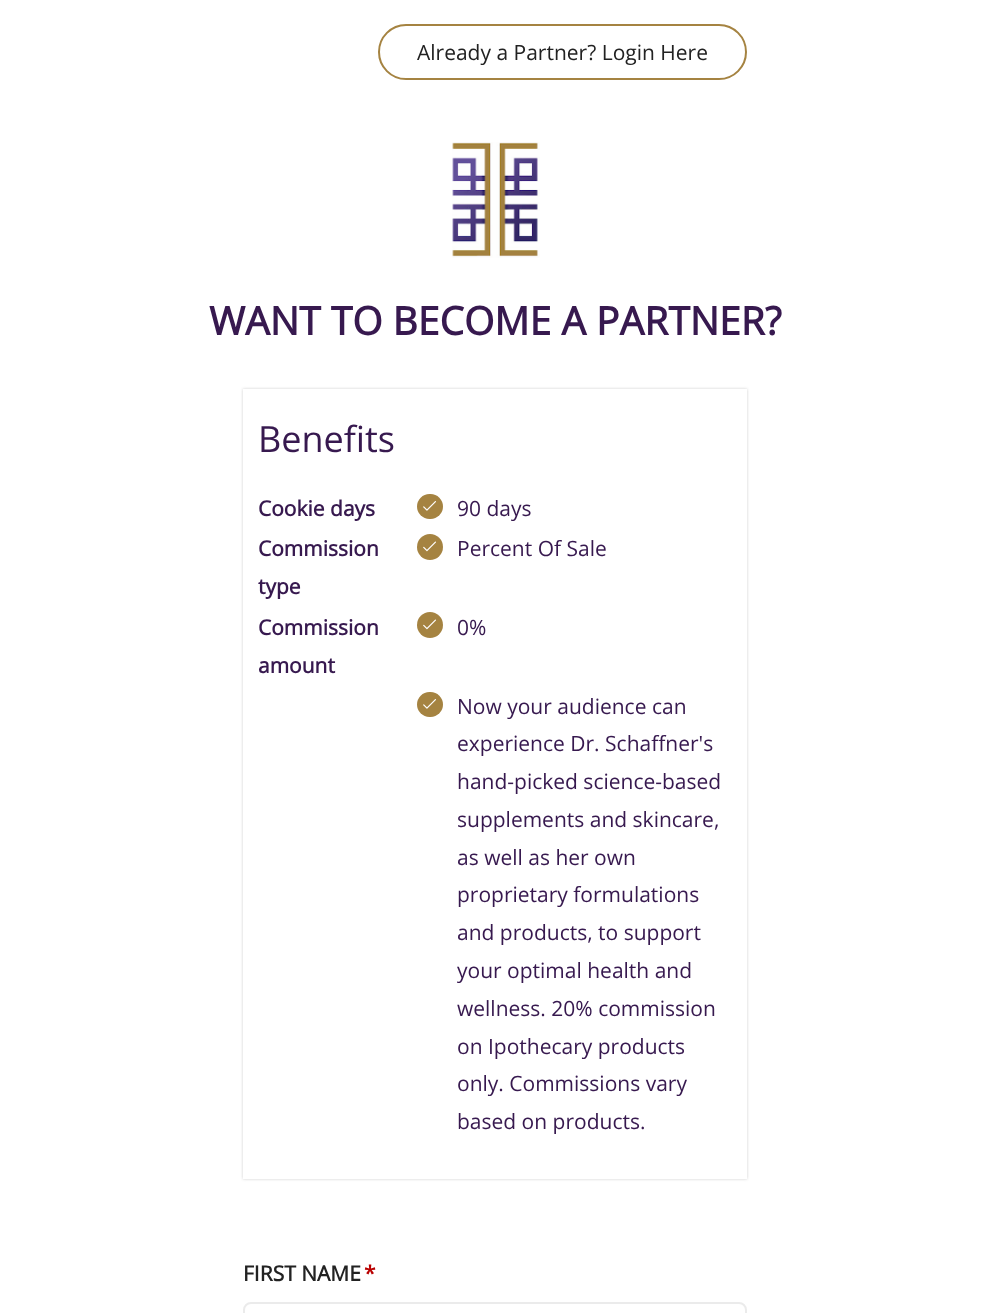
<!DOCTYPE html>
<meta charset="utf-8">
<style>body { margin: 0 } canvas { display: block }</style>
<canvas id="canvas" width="990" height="1313"></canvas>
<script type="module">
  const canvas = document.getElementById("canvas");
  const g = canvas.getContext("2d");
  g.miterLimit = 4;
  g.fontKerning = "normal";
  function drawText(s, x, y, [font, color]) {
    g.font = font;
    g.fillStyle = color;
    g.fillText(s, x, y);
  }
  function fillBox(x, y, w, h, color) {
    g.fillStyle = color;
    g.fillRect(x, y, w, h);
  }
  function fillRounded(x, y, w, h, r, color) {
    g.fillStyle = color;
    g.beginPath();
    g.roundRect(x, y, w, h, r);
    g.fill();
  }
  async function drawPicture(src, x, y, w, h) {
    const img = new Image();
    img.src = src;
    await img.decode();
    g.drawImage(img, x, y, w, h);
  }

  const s1 = ["21px Open Sans", "#222222"];
  const s2 = ["bold 39px Open Sans", "#37194F"];
  const s3 = ["36px Open Sans", "#37194F"];
  const s4 = ["bold 21px Open Sans", "#37194F"];
  const s5 = ["21px Open Sans", "#37194F"];
  const s6 = ["bold 21px Open Sans", "#222222"];
  const s7 = ["bold 21px Open Sans", "#B90000"];

  fillBox(0, 0, 990, 1313, "#FFFFFF");
  g.beginPath();
  g.roundRect(379, 25, 367, 54, 27);
  g.strokeStyle = "#A58341";
  g.lineWidth = 2;
  g.stroke();
  drawText("Already a Partner? Login Here", 417, 60, s1);
  await drawPicture("pic1.png", 452, 142, 88, 116);
  drawText("WANT TO BECOME A PARTNER?", 209, 335, s2);
  g.save();
  g.beginPath();
  g.moveTo(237, 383);
  g.lineTo(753, 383);
  g.lineTo(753, 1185);
  g.lineTo(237, 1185);
  g.closePath();
  g.moveTo(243, 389);
  g.lineTo(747, 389);
  g.lineTo(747, 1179);
  g.lineTo(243, 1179);
  g.closePath();
  g.clip("evenodd");
  g.fillStyle = "#CCCCCC";
  g.filter = "blur(1.5px)";
  g.beginPath();
  g.rect(243, 389, 504, 790);
  g.fill();
  g.filter = "none";
  g.restore();
  drawText("Benefits", 258, 452, s3);
  drawText("Cookie days", 258, 516, s4);
  fillRounded(417, 494, 26, 25, 12.5, "#A58341");
  await drawPicture("pic2.png", 423, 501, 13, 10);
  drawText("90 days", 457, 516, s5);
  drawText("Commission", 258, 556, s4);
  drawText("type", 258, 594, s4);
  g.fillStyle = "#A58341";
  g.beginPath();
  g.arc(430, 547, 13, 0, Math.PI * 2);
  g.fill();
  await drawPicture("pic3.png", 423, 541, 13, 11);
  drawText("Percent Of Sale", 457, 556, s5);
  drawText("Commission", 258, 635, s4);
  drawText("amount", 258, 673, s4);
  g.fillStyle = "#A58341";
  g.beginPath();
  g.arc(430, 625, 13, 0, Math.PI * 2);
  g.fill();
  await drawPicture("pic3.png", 423, 619, 13, 11);
  drawText("0%", 457, 635, s5);
  fillRounded(417, 692, 26, 25, 12.5, "#A58341");
  await drawPicture("pic2.png", 423, 699, 13, 10);
  drawText("Now your audience can", 457, 714, s5);
  drawText("experience Dr. Schaffner's", 457, 751, s5);
  drawText("hand-picked science-based", 457, 789, s5);
  drawText("supplements and skincare,", 457, 827, s5);
  drawText("as well as her own", 457, 865, s5);
  drawText("proprietary formulations", 457, 902, s5);
  drawText("and products, to support", 457, 940, s5);
  drawText("your optimal health and", 457, 978, s5);
  drawText("wellness. 20% commission", 457, 1016, s5);
  drawText("on Ipothecary products", 457, 1054, s5);
  drawText("only. Commissions vary", 457, 1091, s5);
  drawText("based on products.", 457, 1129, s5);
  drawText("FIRST NAME", 243, 1281, s6);
  drawText("*", 364, 1281, s7);
  g.beginPath();
  g.roundRect(244, 1303, 502, 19, 7);
  g.strokeStyle = "#EBEBEB";
  g.stroke();
</script>
